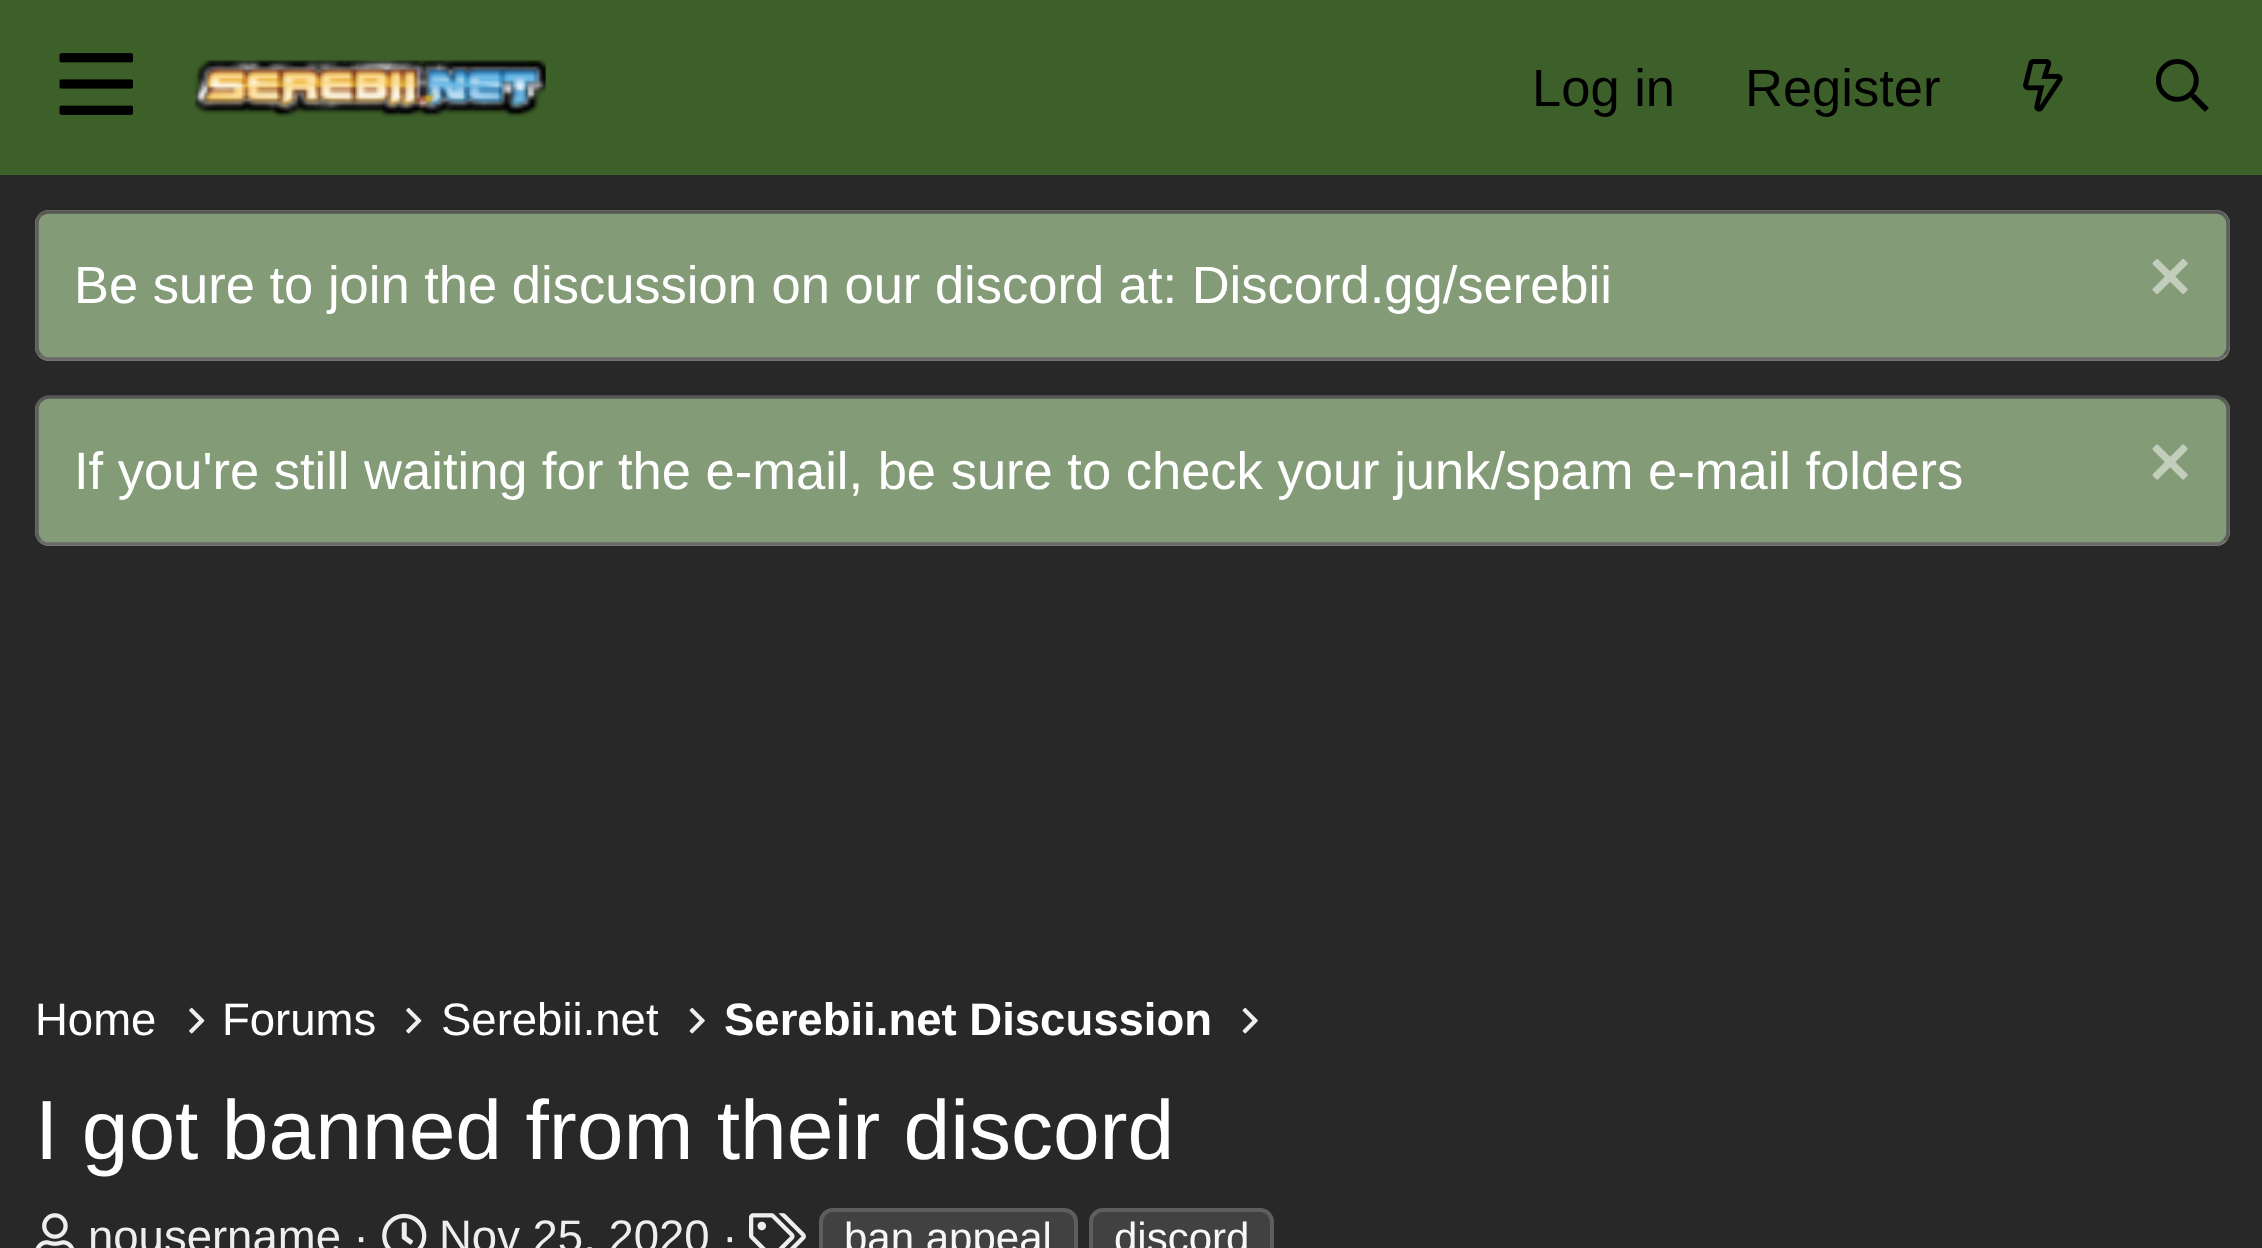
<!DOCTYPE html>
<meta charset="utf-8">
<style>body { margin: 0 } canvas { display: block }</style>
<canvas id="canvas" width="2262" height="1248"></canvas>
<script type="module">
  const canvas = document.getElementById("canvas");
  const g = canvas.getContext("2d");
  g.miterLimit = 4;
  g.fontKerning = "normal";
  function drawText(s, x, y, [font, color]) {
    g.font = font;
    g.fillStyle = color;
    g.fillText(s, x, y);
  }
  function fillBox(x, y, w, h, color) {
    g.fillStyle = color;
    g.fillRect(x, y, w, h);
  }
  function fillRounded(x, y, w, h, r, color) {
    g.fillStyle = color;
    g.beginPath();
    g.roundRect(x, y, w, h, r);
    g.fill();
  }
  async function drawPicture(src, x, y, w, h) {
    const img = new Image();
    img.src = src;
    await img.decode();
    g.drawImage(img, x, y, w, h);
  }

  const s1 = ["52.5px Liberation Sans", "#000000"];
  const s2 = ["52.5px Liberation Sans", "#FFFFFF"];
  const s3 = ["45.5px Liberation Sans", "#FFFFFF"];
  const s4 = ["bold 45.5px Liberation Sans", "#FFFFFF"];
  const s5 = ["84px Liberation Sans", "#FFFFFF"];
  const s6 = ["45.5px Liberation Sans", "#EEEEEE"];
  const s7 = ["42px Liberation Sans", "#F7F7F7"];

  fillBox(0, 0, 2262, 1248, "#282828");
  fillBox(0, 0, 2262, 175, "#3D5F29");
  await drawPicture("pic1.png", 59, 53, 74, 62);
  await drawPicture("pic2.png", 194, 59, 352, 58);
  drawText("Log in", 1532, 106, s1);
  drawText("Register", 1745, 106, s1);
  await drawPicture("pic3.png", 2023, 59, 40, 53);
  await drawPicture("pic4.png", 2156, 59, 53, 53);
  fillRounded(35, 210, 2195, 151, 14, "#849B77");
  g.beginPath();
  g.moveTo(40.5, 215.5);
  g.bezierCurveTo(42.5, 213, 46, 212, 49, 212);
  g.lineTo(2215.5, 212);
  g.bezierCurveTo(2218.5, 212, 2222, 213, 2224, 215.5);
  g.strokeStyle = "#575757";
  g.lineWidth = 3.5;
  g.stroke();
  g.beginPath();
  g.moveTo(2224, 215.5);
  g.bezierCurveTo(2226.5, 217.5, 2228, 221, 2228, 224);
  g.lineTo(2228, 346.5);
  g.bezierCurveTo(2228, 349.5, 2226.5, 353, 2224, 355);
  g.strokeStyle = "#5E5E5E";
  g.stroke();
  g.beginPath();
  g.moveTo(2224, 355);
  g.bezierCurveTo(2222, 357.5, 2218.5, 359, 2215.5, 359);
  g.lineTo(49, 359);
  g.bezierCurveTo(46, 359, 42.5, 357.5, 40.5, 355);
  g.strokeStyle = "#6B6B6B";
  g.stroke();
  g.beginPath();
  g.moveTo(40.5, 355);
  g.bezierCurveTo(38, 353, 37, 349.5, 37, 346.5);
  g.lineTo(37, 224);
  g.bezierCurveTo(37, 221, 38, 217.5, 40.5, 215.5);
  g.strokeStyle = "#5E5E5E";
  g.stroke();
  drawText("Be sure to join the discussion on our discord at: Discord.gg/serebii", 74, 303, s2);
  await drawPicture("pic5.png", 2152, 259, 36, 35);
  fillRounded(35, 396, 2195, 150, 14, "#849B77");
  g.beginPath();
  g.moveTo(40.5, 401);
  g.bezierCurveTo(42.5, 398.5, 46, 397, 49, 397);
  g.lineTo(2215.5, 397);
  g.bezierCurveTo(2218.5, 397, 2222, 398.5, 2224, 401);
  g.strokeStyle = "#575757";
  g.stroke();
  g.beginPath();
  g.moveTo(2224, 401);
  g.bezierCurveTo(2226.5, 403, 2228, 406.5, 2228, 409.5);
  g.lineTo(2228, 532);
  g.bezierCurveTo(2228, 535, 2226.5, 538.5, 2224, 540.5);
  g.strokeStyle = "#5E5E5E";
  g.stroke();
  g.beginPath();
  g.moveTo(2224, 540.5);
  g.bezierCurveTo(2222, 543, 2218.5, 544, 2215.5, 544);
  g.lineTo(49, 544);
  g.bezierCurveTo(46, 544, 42.5, 543, 40.5, 540.5);
  g.strokeStyle = "#6B6B6B";
  g.stroke();
  g.beginPath();
  g.moveTo(40.5, 540.5);
  g.bezierCurveTo(38, 538.5, 37, 535, 37, 532);
  g.lineTo(37, 409.5);
  g.bezierCurveTo(37, 406.5, 38, 403, 40.5, 401);
  g.strokeStyle = "#5E5E5E";
  g.stroke();
  drawText("If you're still waiting for the e-mail, be sure to check your junk/spam e-mail folders", 74, 489, s2);
  await drawPicture("pic6.png", 2152, 444, 36, 36);
  drawText("Home", 35, 1035, s3);
  await drawPicture("pic7.png", 189, 1007, 16, 27);
  drawText("Forums", 222, 1035, s3);
  await drawPicture("pic7.png", 406, 1007, 16, 27);
  g.save();
  g.beginPath();
  g.rect(441, 987, 217, 67);
  g.clip();
  drawText("Serebii.net", 441, 1035, s3);
  g.restore();
  await drawPicture("pic8.png", 689, 1007, 16, 27);
  drawText("Serebii.net Discussion", 724, 1035, s4);
  await drawPicture("pic8.png", 1242, 1007, 16, 27);
  drawText("I got banned from their discord", 35, 1159, s5);
  await drawPicture("pic9.png", 35, 1213, 39, 35);
  drawText("nousername ·", 88, 1252, s6);
  await drawPicture("pic10.png", 382, 1213, 45, 35);
  drawText("Nov 25, 2020 ·", 439, 1252, s6);
  await drawPicture("pic11.png", 749, 1213, 57, 35);
  g.fillStyle = "#414141";
  g.beginPath();
  g.roundRect(821, 1210, 255, 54, 12);
  g.fill();
  g.lineWidth = 4;
  g.stroke();
  drawText("ban appeal", 844, 1252, s7);
  g.fillStyle = "#414141";
  g.beginPath();
  g.roundRect(1091, 1210, 181, 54, 12);
  g.fill();
  g.stroke();
  drawText("discord", 1114, 1252, s7);
</script>
